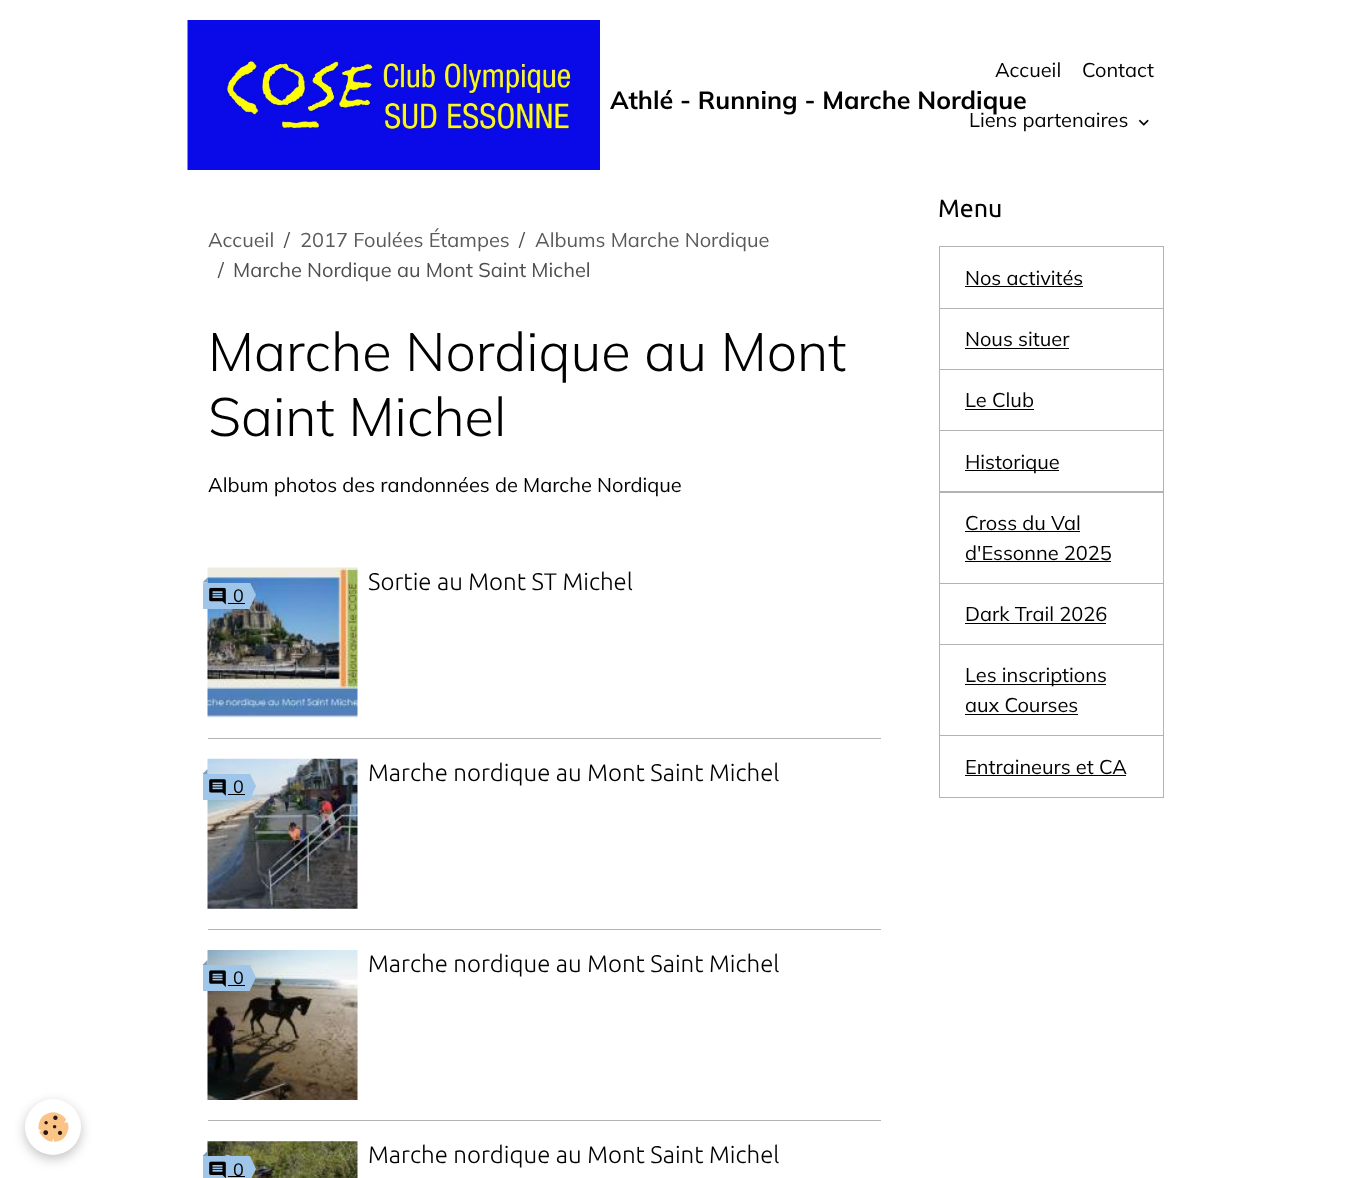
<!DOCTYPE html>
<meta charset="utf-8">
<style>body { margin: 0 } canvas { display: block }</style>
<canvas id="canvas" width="1351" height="1178"></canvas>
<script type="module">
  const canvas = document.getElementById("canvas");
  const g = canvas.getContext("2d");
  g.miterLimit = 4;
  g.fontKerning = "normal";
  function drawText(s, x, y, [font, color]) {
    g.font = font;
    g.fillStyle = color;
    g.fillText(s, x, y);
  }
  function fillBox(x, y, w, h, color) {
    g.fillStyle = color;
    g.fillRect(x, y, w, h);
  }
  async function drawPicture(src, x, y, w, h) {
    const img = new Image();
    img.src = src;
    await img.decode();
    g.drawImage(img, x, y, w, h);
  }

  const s1 = ["bold 25px Mulish", "#000000"];
  const s2 = ["20px Mulish", "#000000"];
  const s3 = ["20px Mulish", "#5A5A5A"];
  const s4 = ["20px Mulish", "#4D4D4D"];
  const s5 = ["300 54px Mulish", "#000000"];
  const s6 = ["300 24px Ubuntu", "#000000"];
  const s7 = ["18px Mulish", "#000000"];
  const s8 = ["25px Ubuntu", "#000000"];

  fillBox(0, 0, 1351, 1178, "#FFFFFF");
  await drawPicture("pic1.png", 187, 20, 413, 150);
  drawText("Athlé - Running - Marche Nordique", 610, 109, s1);
  drawText("Accueil", 995, 77, s2);
  drawText("Contact", 1082, 77, s2);
  drawText("Liens partenaires", 969, 127, s2);
  await drawPicture("pic2.png", 1138, 119, 11, 7);
  g.fillStyle = "rgba(0, 0, 0, 0.24)";
  g.filter = "blur(6px)";
  g.beginPath();
  g.roundRect(25, 1103, 56, 56, 28);
  g.fill();
  g.filter = "none";
  g.fillStyle = "#FFFFFF";
  g.beginPath();
  g.arc(53, 1127, 28, 0, Math.PI * 2);
  g.fill();
  await drawPicture("pic3.png", 38, 1112, 31, 30);
  drawText("Accueil", 208, 247, s3);
  drawText("/", 284, 247, s4);
  drawText("2017 Foulées Étampes", 300, 247, s3);
  drawText("/", 519, 247, s4);
  drawText("Albums Marche Nordique", 535, 247, s3);
  drawText("/", 218, 277, s4);
  drawText("Marche Nordique au Mont Saint Michel", 233, 277, s4);
  drawText("Marche Nordique au Mont", 208, 371, s5);
  drawText("Saint Michel", 208, 436, s5);
  drawText("Album photos des randonnées de Marche Nordique", 208, 492, s2);
  drawText("Sortie au Mont ST Michel", 368, 590, s6);
  await drawPicture("pic4.png", 207, 567, 151, 151);
  fillBox(203, 583, 47, 26, "#9FC5E8");
  g.fillStyle = "#7F9EBA";
  g.beginPath();
  g.moveTo(207.5, 582.5);
  g.lineTo(202.5, 582.5);
  g.lineTo(207.5, 577.5);
  g.closePath();
  g.fill();
  await drawPicture("pic5.png", 209, 587, 17, 18);
  g.letterSpacing = "1px";
  drawText("0", 233, 602, s7);
  fillBox(228, 603, 17, 1, "#000000");
  g.fillStyle = "#9FC5E8";
  g.beginPath();
  g.moveTo(250, 607.5);
  g.lineTo(250, 582.5);
  g.lineTo(256, 595);
  g.closePath();
  g.fill();
  fillBox(208, 738, 673, 1, "#B3B3B3");
  await drawPicture("pic6.png", 207, 758, 151, 151);
  fillBox(203, 774, 47, 26, "#9FC5E8");
  g.fillStyle = "#7F9EBA";
  g.beginPath();
  g.moveTo(207.5, 774);
  g.lineTo(202.5, 774);
  g.lineTo(207.5, 769);
  g.closePath();
  g.fill();
  await drawPicture("pic7.png", 209, 779, 17, 17);
  drawText("0", 233, 793, s7);
  fillBox(228, 794, 17, 1, "#000000");
  g.fillStyle = "#9FC5E8";
  g.beginPath();
  g.moveTo(250, 799);
  g.lineTo(250, 774);
  g.lineTo(256, 786);
  g.closePath();
  g.fill();
  g.letterSpacing = "0px";
  drawText("Marche nordique au Mont Saint Michel", 368, 781, s6);
  fillBox(208, 929, 673, 1, "#B3B3B3");
  await drawPicture("pic8.png", 207, 950, 151, 150);
  fillBox(203, 965, 47, 26, "#9FC5E8");
  g.fillStyle = "#7F9EBA";
  g.beginPath();
  g.moveTo(207.5, 965);
  g.lineTo(202.5, 965);
  g.lineTo(207.5, 960);
  g.closePath();
  g.fill();
  await drawPicture("pic9.png", 209, 970, 17, 17);
  g.letterSpacing = "1px";
  drawText("0", 233, 984, s7);
  fillBox(228, 985, 17, 1, "#000000");
  g.fillStyle = "#9FC5E8";
  g.beginPath();
  g.moveTo(250, 990);
  g.lineTo(250, 965);
  g.lineTo(256, 977.5);
  g.closePath();
  g.fill();
  g.letterSpacing = "0px";
  drawText("Marche nordique au Mont Saint Michel", 368, 972, s6);
  fillBox(208, 1120, 673, 1, "#B3B3B3");
  drawText("Marche nordique au Mont Saint Michel", 368, 1163, s6);
  await drawPicture("pic10.png", 207, 1141, 151, 37);
  fillBox(203, 1156, 47, 22, "#9FC5E8");
  g.fillStyle = "#7F9EBA";
  g.beginPath();
  g.moveTo(207.5, 1156);
  g.lineTo(202.5, 1156);
  g.lineTo(207.5, 1151);
  g.closePath();
  g.fill();
  await drawPicture("pic11.png", 209, 1161, 17, 17);
  fillBox(228, 1176, 17, 1, "#000000");
  g.letterSpacing = "1px";
  drawText("0", 233, 1176, s7);
  g.fillStyle = "#9FC5E8";
  g.beginPath();
  g.moveTo(250, 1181);
  g.lineTo(250, 1156);
  g.lineTo(256, 1169);
  g.closePath();
  g.fill();
  g.letterSpacing = "0px";
  drawText("Menu", 938, 217, s8);
  g.strokeStyle = "#B3B3B3";
  g.strokeRect(939.5, 246.5, 224, 62);
  drawText("Nos activités", 965, 285, s2);
  fillBox(965, 286, 118, 1, "#000000");
  g.strokeRect(939.5, 308.5, 224, 61);
  drawText("Nous situer", 965, 346, s2);
  fillBox(965, 348, 104, 1, "#000000");
  g.strokeRect(939.5, 369.5, 224, 61);
  drawText("Le Club", 965, 407, s2);
  fillBox(965, 409, 69, 1, "#000000");
  g.strokeRect(939.5, 430.5, 224, 62);
  fillBox(965, 470, 94, 1, "#000000");
  drawText("Historique", 965, 469, s2);
  g.strokeRect(939.5, 491.5, 224, 92);
  drawText("Cross du Val", 965, 530, s2);
  fillBox(965, 531, 115, 1, "#000000");
  drawText("d'Essonne 2025", 965, 560, s2);
  fillBox(965, 561, 146, 1, "#000000");
  g.strokeRect(939.5, 583.5, 224, 61);
  drawText("Dark Trail 2026", 965, 621, s2);
  fillBox(965, 623, 141, 1, "#000000");
  g.strokeRect(939.5, 644.5, 224, 91);
  fillBox(965, 684, 141, 1, "#000000");
  drawText("Les inscriptions", 965, 682, s2);
  drawText("aux Courses", 965, 712, s2);
  fillBox(965, 714, 113, 1, "#000000");
  g.strokeRect(939.5, 735.5, 224, 62);
  drawText("Entraineurs et CA", 965, 774, s2);
  fillBox(965, 775, 161, 1, "#000000");
</script>
